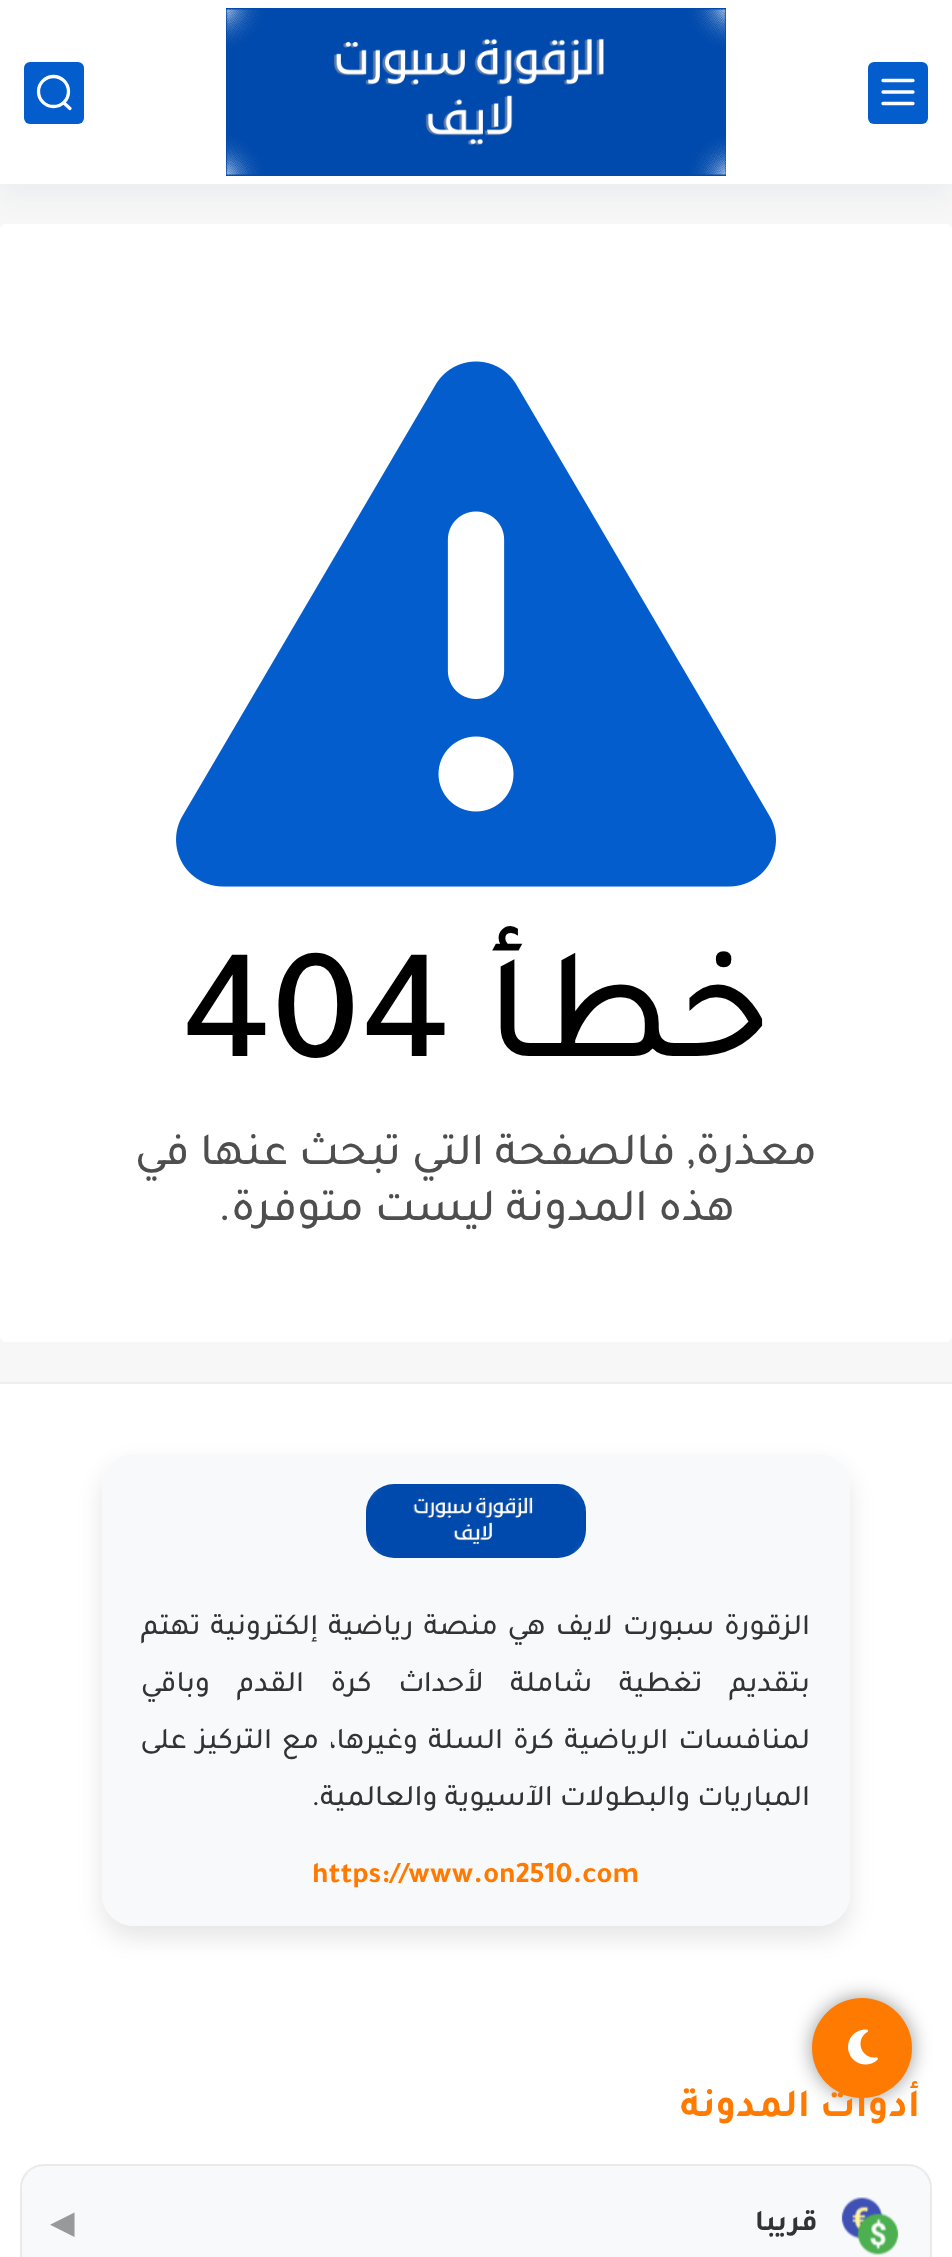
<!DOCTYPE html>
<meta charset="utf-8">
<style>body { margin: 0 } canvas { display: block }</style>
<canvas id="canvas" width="952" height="2257"></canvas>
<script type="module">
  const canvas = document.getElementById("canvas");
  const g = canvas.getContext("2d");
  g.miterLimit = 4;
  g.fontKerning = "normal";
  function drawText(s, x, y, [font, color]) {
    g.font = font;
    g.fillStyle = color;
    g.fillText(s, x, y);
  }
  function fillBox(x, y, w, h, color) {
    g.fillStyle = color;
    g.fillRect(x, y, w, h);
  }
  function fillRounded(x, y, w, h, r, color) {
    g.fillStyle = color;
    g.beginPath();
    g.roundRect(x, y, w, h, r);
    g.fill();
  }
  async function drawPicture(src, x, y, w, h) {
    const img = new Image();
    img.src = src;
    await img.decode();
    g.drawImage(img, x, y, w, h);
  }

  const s1 = ["500 160px Tajawal", "#000000"];
  const s2 = ["500 46px Tajawal", "#4E4E4E"];
  const s3 = ["500 30px Tajawal", "#333333"];
  const s4 = ["bold 30px Tajawal", "#FF7A00"];
  const s5 = ["bold 40px Tajawal", "#FF7A00"];
  const s6 = ["bold 30px Tajawal", "#333333"];
  const s7 = ["32px DejaVu Sans", "#999999"];

  fillBox(0, 0, 952, 2257, "#F7F7F7");
  fillRounded(0, 224, 952, 1118, 6, "#FFFFFF");
  g.fillStyle = "rgba(9, 32, 76, 0.05)";
  g.filter = "blur(14px)";
  g.beginPath();
  g.rect(0, 12, 952, 184);
  g.fill();
  g.filter = "none";
  fillBox(0, 0, 952, 184, "#FFFFFF");
  fillRounded(868, 62, 60, 62, 6, "#035DCD");
  g.beginPath();
  g.moveTo(883, 92);
  g.lineTo(913, 92);
  g.moveTo(883, 80.5);
  g.lineTo(913, 80.5);
  g.moveTo(883, 103.5);
  g.lineTo(913, 103.5);
  g.strokeStyle = "#FFFFFF";
  g.lineWidth = 3.3;
  g.lineCap = "round";
  g.lineJoin = "round";
  g.stroke();
  await drawPicture("pic1.png", 226, 8, 500, 168);
  fillRounded(24, 62, 60, 62, 6, "#035DCD");
  g.beginPath();
  g.arc(53.5, 91.5, 15, 0, Math.PI * 2);
  g.stroke();
  g.beginPath();
  g.moveTo(64, 103);
  g.lineTo(70, 108.5);
  g.stroke();
  await drawPicture("pic2.png", 176, 361, 600, 526);
  g.direction = "rtl";
  drawText("خطأ", 770, 1056, s1);
  g.direction = "ltr";
  drawText("404", 182, 1056, s1);
  g.direction = "rtl";
  drawText("معذرة, فالصفحة التي تبحث عنها في", 817, 1164, s2);
  drawText("هذه المدونة ليست متوفرة.", 735, 1220, s2);
  fillBox(0, 1384, 952, 873, "#FFFFFF");
  g.fillStyle = "rgba(0, 0, 0, 0.4)";
  g.filter = "blur(10px)";
  g.beginPath();
  g.roundRect(812, 1998, 100, 100, 50);
  g.fill();
  g.filter = "none";
  g.fillStyle = "#FF7A00";
  g.beginPath();
  g.arc(862, 2048, 50, 0, Math.PI * 2);
  g.fill();
  await drawPicture("pic3.png", 848, 2029, 30, 36);
  fillBox(0, 1382, 952, 2, "#EEEEEE");
  g.save();
  g.beginPath();
  g.moveTo(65, 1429);
  g.lineTo(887, 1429);
  g.lineTo(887, 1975);
  g.lineTo(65, 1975);
  g.closePath();
  g.moveTo(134, 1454);
  g.lineTo(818, 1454);
  g.bezierCurveTo(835.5, 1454, 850, 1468.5, 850, 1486);
  g.lineTo(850, 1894);
  g.bezierCurveTo(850, 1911.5, 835.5, 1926, 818, 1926);
  g.lineTo(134, 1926);
  g.bezierCurveTo(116.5, 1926, 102, 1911.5, 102, 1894);
  g.lineTo(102, 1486);
  g.bezierCurveTo(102, 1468.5, 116.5, 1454, 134, 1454);
  g.closePath();
  g.clip("evenodd");
  g.fillStyle = "rgba(0, 0, 0, 0.1)";
  g.filter = "blur(12px)";
  g.beginPath();
  g.roundRect(102, 1466, 748, 472, 32);
  g.fill();
  g.filter = "none";
  g.restore();
  fillRounded(102, 1454, 748, 472, 32, "rgba(245, 247, 250, 0.8)");
  await drawPicture("pic4.png", 366, 1484, 220, 74);
  g.wordSpacing = "2.75px";
  drawText("الزقورة سبورت لايف هي منصة رياضية إلكترونية تهتم", 810, 1634, s3);
  g.wordSpacing = "19.5px";
  drawText("بتقديم تغطية شاملة لأحداث كرة القدم وباقي", 810, 1691, s3);
  g.wordSpacing = "3px";
  drawText("لمنافسات الرياضية كرة السلة وغيرها، مع التركيز على", 810, 1748, s3);
  g.wordSpacing = "0px";
  drawText("المباريات والبطولات الآسيوية والعالمية.", 810, 1805, s3);
  g.direction = "ltr";
  drawText("https://www.on2510.com", 312, 1882, s4);
  g.direction = "rtl";
  drawText("أدوات المدونة", 920, 2116, s5);
  g.fillStyle = "rgba(245, 247, 250, 0.8)";
  g.beginPath();
  g.roundRect(21, 2165, 910, 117, 23);
  g.fill();
  g.strokeStyle = "#EAEAEA";
  g.lineWidth = 2;
  g.lineJoin = "miter";
  g.stroke();
  await drawPicture("pic5.png", 841, 2197, 58, 58);
  drawText("قريبا", 818, 2230, s6);
  g.direction = "ltr";
  drawText("◀", 50, 2233, s7);
</script>
